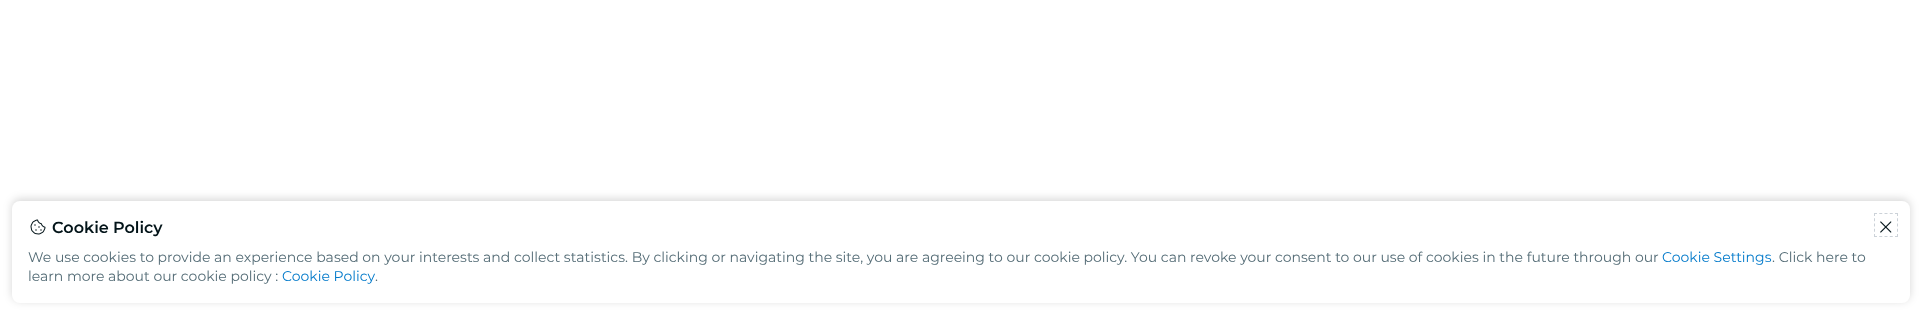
<!DOCTYPE html>
<meta charset="utf-8">
<style>body { margin: 0 } canvas { display: block }</style>
<canvas id="canvas" width="1922" height="315"></canvas>
<script type="module">
  const canvas = document.getElementById("canvas");
  const g = canvas.getContext("2d");
  g.miterLimit = 4;
  g.fontKerning = "normal";
  function drawText(s, x, y, [font, color]) {
    g.font = font;
    g.fillStyle = color;
    g.fillText(s, x, y);
  }
  function fillBox(x, y, w, h, color) {
    g.fillStyle = color;
    g.fillRect(x, y, w, h);
  }
  function fillRounded(x, y, w, h, r, color) {
    g.fillStyle = color;
    g.beginPath();
    g.roundRect(x, y, w, h, r);
    g.fill();
  }
  async function drawPicture(src, x, y, w, h) {
    const img = new Image();
    img.src = src;
    await img.decode();
    g.drawImage(img, x, y, w, h);
  }

  const s1 = ["600 16px Montserrat", "#031419"];
  const s2 = ["14px Montserrat", "#536B75"];
  const s3 = ["14px Montserrat", "#0079CA"];

  fillBox(0, 0, 1922, 315, "#FFFFFF");
  g.fillStyle = "rgba(0, 0, 0, 0.16)";
  g.filter = "blur(4px)";
  g.beginPath();
  g.roundRect(12, 199, 1898, 102, 8);
  g.fill();
  g.filter = "none";
  fillRounded(12, 201, 1898, 102, 8, "#FFFFFF");
  await drawPicture("pic1.png", 30, 219, 16, 16);
  drawText("Cookie Policy", 52, 233, s1);
  drawText("We use cookies to provide an experience based on your interests and collect statistics. By clicking or navigating the site, you are agreeing to our cookie policy. You can revoke your consent to our use of cookies in the future through our", 28, 262, s2);
  drawText("Cookie Settings", 1662, 262, s3);
  drawText(". Click here to", 1772, 262, s2);
  drawText("learn more about our cookie policy :", 28, 281, s2);
  drawText("Cookie Policy", 282, 281, s3);
  drawText(".", 375, 281, s2);
  g.beginPath();
  g.moveTo(1874, 213.5);
  g.lineTo(1898, 213.5);
  g.moveTo(1897.5, 213);
  g.lineTo(1897.5, 237);
  g.moveTo(1874, 236.5);
  g.lineTo(1898, 236.5);
  g.moveTo(1874.5, 213);
  g.lineTo(1874.5, 237);
  g.strokeStyle = "#CCD2D8";
  g.setLineDash([3, 2.25]);
  g.stroke();
  await drawPicture("pic2.png", 1880, 221, 12, 12);
</script>
